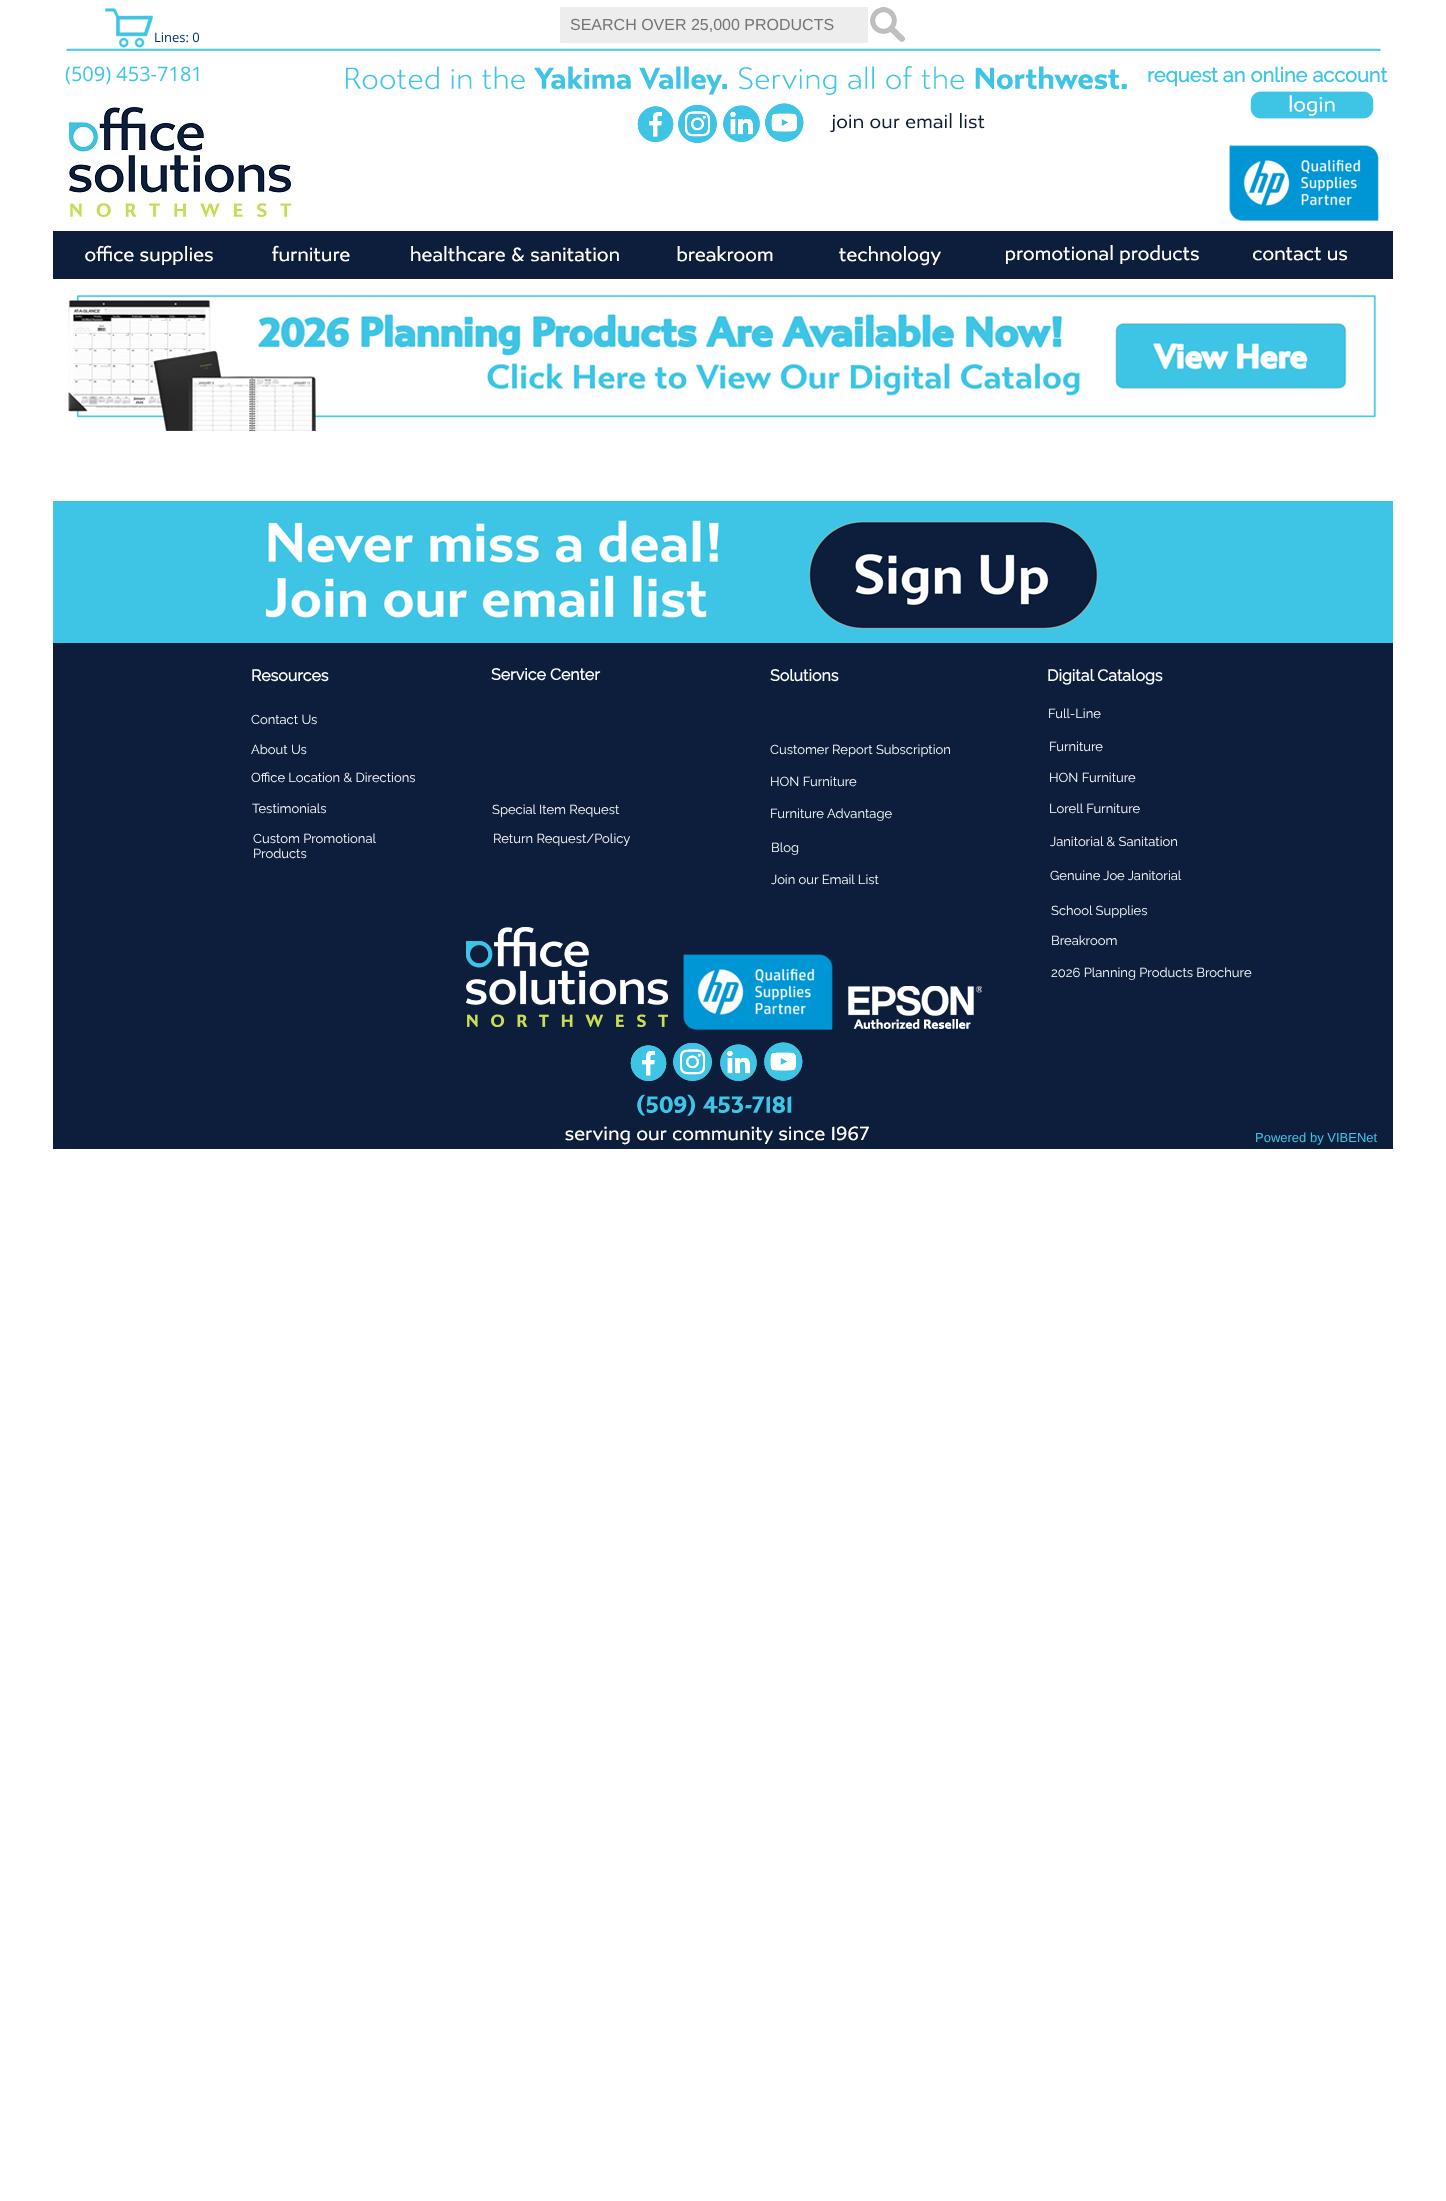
<!DOCTYPE html>
<meta charset="utf-8">
<style>body { margin: 0 } canvas { display: block }</style>
<canvas id="canvas" width="1446" height="2201"></canvas>
<script type="module">
  const canvas = document.getElementById("canvas");
  const g = canvas.getContext("2d");
  g.miterLimit = 4;
  g.fontKerning = "normal";
  function drawText(s, x, y, [font, color]) {
    g.font = font;
    g.fillStyle = color;
    g.fillText(s, x, y);
  }
  function fillBox(x, y, w, h, color) {
    g.fillStyle = color;
    g.fillRect(x, y, w, h);
  }
  function fillRounded(x, y, w, h, r, color) {
    g.fillStyle = color;
    g.beginPath();
    g.roundRect(x, y, w, h, r);
    g.fill();
  }
  async function drawPicture(src, x, y, w, h) {
    const img = new Image();
    img.src = src;
    await img.decode();
    g.drawImage(img, x, y, w, h);
  }

  const s1 = ["16px Liberation Sans", "#757575"];
  const s2 = ["13px Open Sans", "#022F68"];
  const s3 = ["20px Open Sans", "#3EC4E4"];
  const s4 = ["bold 20px Raleway", "#3EC4E4"];
  const s5 = ["bold 16px Raleway", "#FFFFFF"];
  const s6 = ["100 13px Raleway", "#FFFFFF"];
  const s7 = ["13px Liberation Sans", "#3EC4E4"];

  fillBox(0, 0, 1446, 2201, "#FFFFFF");
  fillRounded(560, 7, 308, 36, 1, "#EDEDED");
  drawText("SEARCH OVER 25,000 PRODUCTS", 570, 30, s1);
  await drawPicture("pic1.png", 870, 7, 35, 35);
  await drawPicture("pic2.png", 105, 8, 48, 40);
  drawText("Lines: 0", 154, 42, s2);
  await drawPicture("pic3.png", 66, 48, 1315, 3);
  drawText("(509) 453-7181", 65, 81, s3);
  await drawPicture("pic4.png", 346, 66, 781, 29);
  drawText("request an online account", 1147, 82, s4);
  await drawPicture("pic5.png", 69, 107, 222, 110);
  await drawPicture("pic6.png", 637, 106, 37, 36);
  await drawPicture("pic7.png", 678, 105, 39, 38);
  await drawPicture("pic8.png", 723, 105, 37, 37);
  await drawPicture("pic9.png", 765, 103, 39, 39);
  await drawPicture("pic10.png", 830, 113, 155, 20);
  await drawPicture("pic11.png", 1250, 91, 124, 28);
  await drawPicture("pic12.png", 1229, 145, 150, 76);
  fillBox(53, 231, 1340, 48, "#0D1E3C");
  await drawPicture("pic13.png", 85, 245, 128, 20);
  await drawPicture("pic14.png", 272, 245, 78, 17);
  await drawPicture("pic15.png", 411, 246, 208, 16);
  await drawPicture("pic16.png", 677, 246, 96, 16);
  await drawPicture("pic17.png", 839, 246, 102, 20);
  await drawPicture("pic18.png", 1006, 245, 193, 19);
  await drawPicture("pic19.png", 1253, 247, 94, 14);
  await drawPicture("pic20.png", 68, 295, 1308, 136);
  await drawPicture("pic21.png", 53, 501, 1340, 142);
  fillBox(53, 643, 1340, 506, "#0D1E3C");
  drawText("Resources", 251, 681, s5);
  drawText("Service Center", 491, 680, s5);
  drawText("Solutions", 770, 681, s5);
  drawText("Digital Catalogs", 1047, 681, s5);
  drawText("Contact Us", 251, 724, s6);
  drawText("Full-Line", 1048, 718, s6);
  drawText("About Us", 251, 754, s6);
  drawText("Customer Report Subscription", 770, 754, s6);
  drawText("Furniture", 1049, 751, s6);
  drawText("Office Location & Directions", 251, 782, s6);
  drawText("HON Furniture", 770, 786, s6);
  drawText("HON Furniture", 1049, 782, s6);
  drawText("Testimonials", 252, 813, s6);
  drawText("Special Item Request", 492, 814, s6);
  drawText("Furniture Advantage", 770, 818, s6);
  drawText("Lorell Furniture", 1049, 813, s6);
  drawText("Custom Promotional", 253, 843, s6);
  drawText("Products", 253, 858, s6);
  drawText("Return Request/Policy", 493, 843, s6);
  drawText("Blog", 771, 852, s6);
  drawText("Janitorial & Sanitation", 1050, 846, s6);
  drawText("Join our Email List", 771, 884, s6);
  drawText("Genuine Joe Janitorial", 1050, 880, s6);
  drawText("School Supplies", 1051, 915, s6);
  await drawPicture("pic22.png", 466, 927, 202, 100);
  drawText("Breakroom", 1051, 945, s6);
  await drawPicture("pic23.png", 683, 954, 150, 76);
  drawText("2026 Planning Products Brochure", 1051, 977, s6);
  await drawPicture("pic24.png", 848, 986, 134, 43);
  await drawPicture("pic25.png", 630, 1045, 37, 36);
  await drawPicture("pic26.png", 673, 1042, 39, 39);
  await drawPicture("pic27.png", 720, 1044, 37, 37);
  await drawPicture("pic28.png", 764, 1042, 39, 39);
  await drawPicture("pic29.png", 637, 1094, 155, 22);
  await drawPicture("pic30.png", 565, 1126, 304, 19);
  drawText("Powered by VIBENet", 1255, 1142, s7);
</script>
